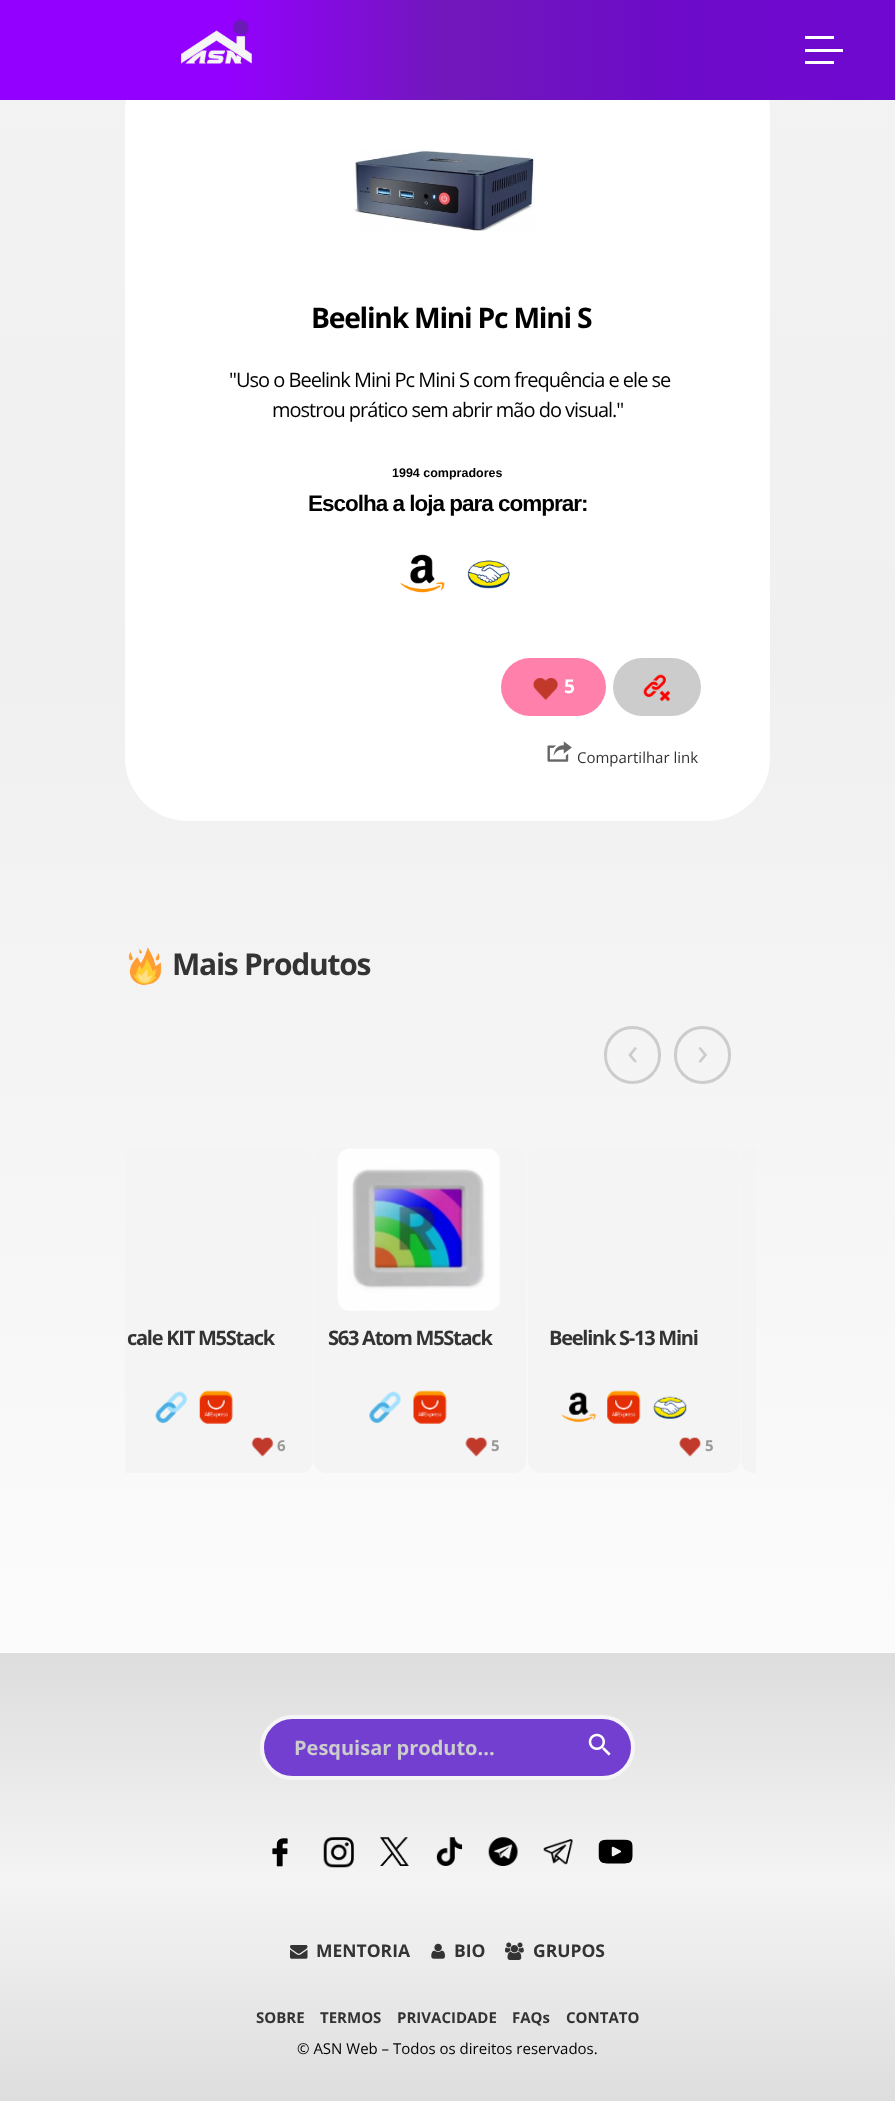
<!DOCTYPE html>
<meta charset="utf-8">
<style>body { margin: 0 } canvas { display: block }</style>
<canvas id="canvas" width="895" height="2101"></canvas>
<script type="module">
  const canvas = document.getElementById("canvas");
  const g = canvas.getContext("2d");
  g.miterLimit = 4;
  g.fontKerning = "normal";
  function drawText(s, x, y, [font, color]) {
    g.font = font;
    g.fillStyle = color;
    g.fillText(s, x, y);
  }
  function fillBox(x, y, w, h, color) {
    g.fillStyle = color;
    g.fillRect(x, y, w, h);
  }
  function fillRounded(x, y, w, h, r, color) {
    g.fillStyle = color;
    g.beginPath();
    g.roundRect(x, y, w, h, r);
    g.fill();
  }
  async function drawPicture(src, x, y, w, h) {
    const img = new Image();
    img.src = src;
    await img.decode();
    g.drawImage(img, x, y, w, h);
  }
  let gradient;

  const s1 = ["bold 28.25px Open Sans", "#000000"];
  const s2 = ["20px Open Sans", "#000000"];
  const s3 = ["bold 12.5px Liberation Sans", "#000000"];
  const s4 = ["bold 22.5px Liberation Sans", "#000000"];
  const s5 = ["bold 19px Open Sans", "#FFFFFF"];
  const s6 = ["15px Open Sans", "#333333"];
  const s7 = ["bold 30px Open Sans", "#333333"];
  const s8 = ["38px Open Sans", "#CCCCCC"];
  const s9 = ["bold 20px Open Sans", "#333333"];
  const s10 = ["bold 15px Open Sans", "#999999"];
  const s11 = ["bold 20px Open Sans", "#CCCCCC"];
  const s12 = ["bold 17.5px Open Sans", "#333333"];
  const s13 = ["bold 15px Open Sans", "#333333"];
  const s14 = ["15px Open Sans", "#000000"];

  fillBox(0, 0, 895, 2101, "#FFFFFF");
  gradient = g.createLinearGradient(448, 1653, 448, -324);
  gradient.addColorStop(0, "#FBFBFB");
  gradient.addColorStop(0.5, "#F0F0F0");
  gradient.addColorStop(1, "#F4F4F4");
  g.fillStyle = gradient;
  g.fillRect(0, 100, 895, 1553);
  fillRounded(125, 48, 645, 773, 63, "#FFFFFF");
  gradient = g.createLinearGradient(0, 50, 895, 50);
  gradient.addColorStop(0, "#9400FF");
  gradient.addColorStop(0.25, "#9400FF");
  gradient.addColorStop(0.5, "#7118BB");
  gradient.addColorStop(0.75, "#6D0BC9");
  gradient.addColorStop(1, "#7008D1");
  g.fillStyle = gradient;
  g.fillRect(0, 0, 895, 100);
  await drawPicture("pic1.png", 181, 19, 71, 45);
  fillBox(805, 49, 38, 3, "#FFFFFF");
  fillBox(805, 36, 29, 3, "#FFFFFF");
  fillBox(805, 61, 29, 3, "#FFFFFF");
  await drawPicture("pic2.png", 353, 150, 182, 81);
  g.letterSpacing = "-1.25px";
  drawText("Beelink Mini Pc Mini S", 311, 328, s1);
  g.letterSpacing = "-1px";
  drawText("\"Uso o Beelink Mini Pc Mini S com frequência e ele se", 229, 387, s2);
  drawText("mostrou prático sem abrir mão do visual.\"", 272, 417, s2);
  g.letterSpacing = "0px";
  drawText("1994 compradores", 392, 477, s3);
  g.letterSpacing = "-1px";
  drawText("Escolha a loja para comprar:", 308, 511, s4);
  await drawPicture("pic3.png", 400, 554, 45, 39);
  await drawPicture("pic4.png", 467, 560, 43, 29);
  fillRounded(501, 658, 105, 58, 29, "#FF80AB");
  await drawPicture("pic5.png", 533, 678, 25, 22);
  g.letterSpacing = "0px";
  drawText("5", 564, 693, s5);
  fillRounded(613, 658, 88, 58, 29, "#CCCCCC");
  await drawPicture("pic6.png", 643, 674, 27, 27);
  await drawPicture("pic7.png", 547, 741, 25, 21);
  drawText("Compartilhar link", 577, 763, s6);
  await drawPicture("pic8.png", 128, 947, 34, 38);
  g.letterSpacing = "-1.25px";
  drawText("Mais Produtos", 172, 975, s7);
  g.beginPath();
  g.roundRect(605.5, 1027.5, 54, 55, 27);
  g.strokeStyle = "#CCCCCC";
  g.lineWidth = 3;
  g.stroke();
  g.letterSpacing = "0px";
  drawText("‹", 627, 1065, s8);
  g.beginPath();
  g.roundRect(675.5, 1027.5, 54, 55, 27);
  g.stroke();
  drawText("›", 697, 1065, s8);
  fillRounded(125, 1148, 188, 325, 13, "#F4F4F4");
  g.beginPath();
  g.roundRect(125, 1148, 163, 325, [0, 13, 13, 0]);
  g.fill();
  g.letterSpacing = "-1.25px";
  drawText("cale KIT M5Stack", 127, 1345, s9);
  await drawPicture("pic9.png", 155, 1391, 32, 33);
  await drawPicture("pic10.png", 199, 1390, 34, 34);
  await drawPicture("pic11.png", 251, 1437, 23, 20);
  g.letterSpacing = "0px";
  drawText("6", 277, 1451, s10);
  fillRounded(339, 1148, 187, 325, 13, "#F4F4F4");
  fillRounded(314, 1148, 187, 325, 13, "#F4F4F4");
  await drawPicture("pic12.png", 337, 1148, 163, 163);
  g.letterSpacing = "-1.25px";
  drawText("S63 Atom M5Stack", 328, 1345, s9);
  await drawPicture("pic13.png", 369, 1391, 32, 33);
  await drawPicture("pic14.png", 413, 1390, 34, 34);
  await drawPicture("pic15.png", 465, 1437, 23, 20);
  g.letterSpacing = "0px";
  drawText("5", 491, 1451, s10);
  fillRounded(553, 1148, 187, 325, 13, "#F4F4F4");
  fillRounded(528, 1148, 187, 325, 13, "#F4F4F4");
  g.letterSpacing = "-1.25px";
  drawText("Beelink S-13 Mini", 549, 1345, s9);
  await drawPicture("pic16.png", 561, 1392, 36, 31);
  await drawPicture("pic17.png", 607, 1390, 34, 34);
  await drawPicture("pic18.png", 653, 1396, 34, 23);
  await drawPicture("pic19.png", 679, 1437, 23, 20);
  g.letterSpacing = "0px";
  drawText("5", 705, 1451, s10);
  g.fillStyle = "#F4F4F4";
  g.beginPath();
  g.roundRect(741, 1148, 15, 325, [13, 0, 0, 13]);
  g.fill();
  gradient = g.createLinearGradient(448, 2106, 448, 1653);
  gradient.addColorStop(0, "#DDDDDD");
  gradient.addColorStop(0.5, "#F4F4F4");
  gradient.addColorStop(1, "#DDDDDD");
  g.fillStyle = gradient;
  g.fillRect(0, 1653, 895, 448);
  g.fillStyle = "#733FD1";
  g.beginPath();
  g.roundRect(262, 1717, 371, 61, 30.5);
  g.fill();
  g.strokeStyle = "#F5F5F5";
  g.lineWidth = 4;
  g.stroke();
  drawText("Pesquisar produto...", 294, 1755, s11);
  await drawPicture("pic20.png", 588, 1733, 23, 23);
  await drawPicture("pic21.png", 272, 1838, 16, 29);
  await drawPicture("pic22.png", 323, 1837, 31, 31);
  await drawPicture("pic23.png", 380, 1837, 29, 29);
  await drawPicture("pic24.png", 436, 1837, 27, 29);
  await drawPicture("pic25.png", 488, 1837, 30, 29);
  await drawPicture("pic26.png", 543, 1839, 30, 26);
  await drawPicture("pic27.png", 598, 1839, 35, 25);
  await drawPicture("pic28.png", 290, 1945, 18, 14);
  drawText("MENTORIA", 316, 1957, s12);
  await drawPicture("pic29.png", 431, 1943, 14, 16);
  drawText("BIO", 454, 1957, s12);
  await drawPicture("pic30.png", 505, 1942, 19, 18);
  drawText("GRUPOS", 533, 1957, s12);
  drawText("SOBRE", 256, 2023, s13);
  drawText("TERMOS", 320, 2023, s13);
  drawText("PRIVACIDADE", 397, 2023, s13);
  drawText("FAQs", 512, 2023, s13);
  drawText("CONTATO", 566, 2023, s13);
  drawText("© ASN Web – Todos os direitos reservados.", 297, 2054, s14);
</script>
